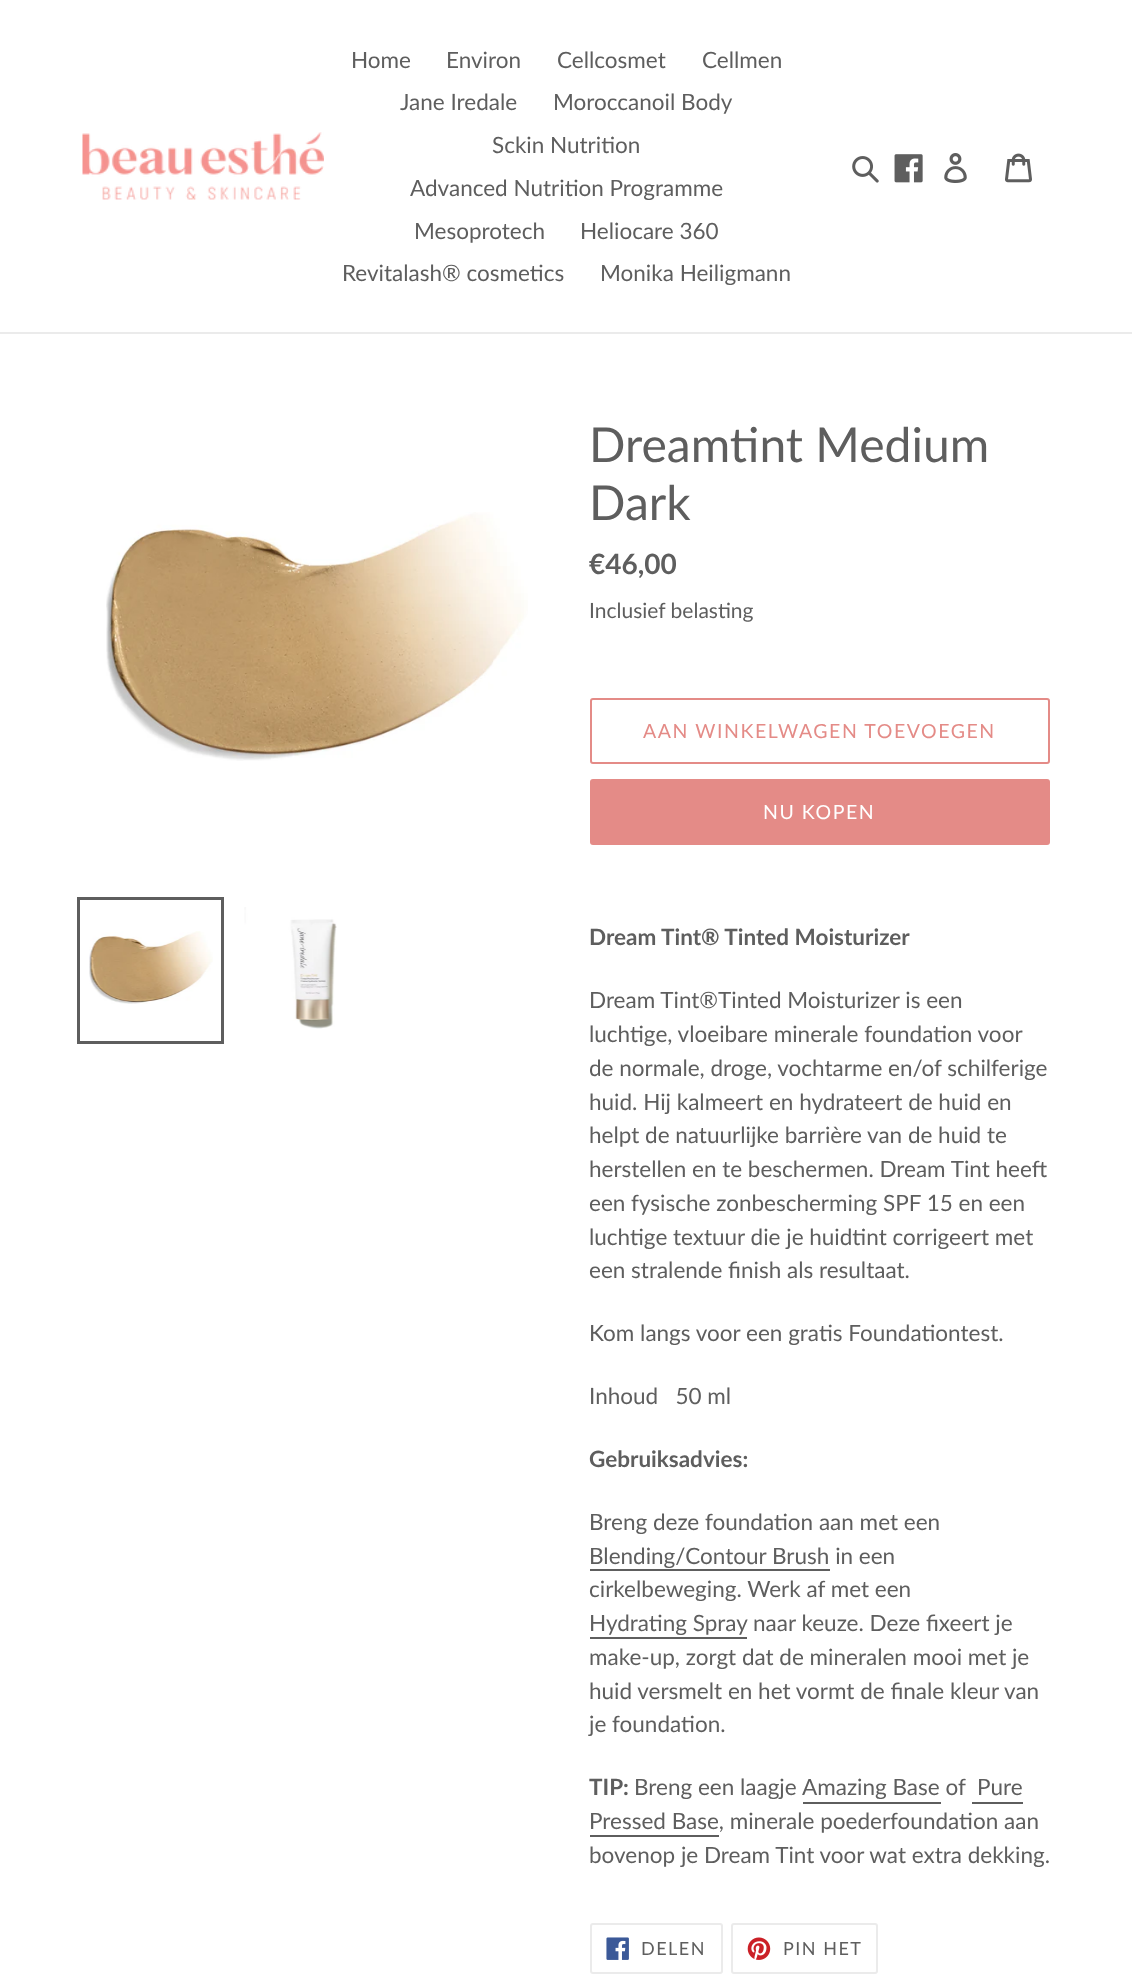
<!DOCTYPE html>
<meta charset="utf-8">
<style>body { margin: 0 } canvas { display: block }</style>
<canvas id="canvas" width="1132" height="1987"></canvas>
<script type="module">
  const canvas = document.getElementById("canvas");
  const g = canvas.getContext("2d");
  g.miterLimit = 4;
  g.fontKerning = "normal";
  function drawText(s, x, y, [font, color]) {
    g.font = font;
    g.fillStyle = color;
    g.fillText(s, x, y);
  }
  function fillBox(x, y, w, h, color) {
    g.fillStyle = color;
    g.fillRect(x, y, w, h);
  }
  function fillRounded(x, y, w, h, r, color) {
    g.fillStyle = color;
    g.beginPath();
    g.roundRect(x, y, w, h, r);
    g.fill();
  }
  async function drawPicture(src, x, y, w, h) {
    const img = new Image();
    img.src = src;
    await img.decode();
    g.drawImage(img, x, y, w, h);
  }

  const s1 = ["22.5px Lato", "#5E5E5E"];
  const s2 = ["48px Lato", "#5E5E5E"];
  const s3 = ["bold 28px Lato", "#5E5E5E"];
  const s4 = ["21px Lato", "#5E5E5E"];
  const s5 = ["19.5px Lato", "#E48B87"];
  const s6 = ["19.5px Lato", "#FFFFFF"];
  const s7 = ["bold 22.5px Lato", "#5E5E5E"];
  const s8 = ["18px Lato", "#5E5E5E"];

  fillBox(0, 0, 1132, 1987, "#FFFFFF");
  fillBox(0, 332, 1132, 2, "#EBEBEB");
  await drawPicture("pic1.png", 82, 132, 242, 68);
  drawText("Home", 351, 68, s1);
  drawText("Environ", 446, 68, s1);
  drawText("Cellcosmet", 557, 68, s1);
  drawText("Cellmen", 702, 68, s1);
  drawText("Jane Iredale", 400, 110, s1);
  drawText("Moroccanoil Body", 553, 110, s1);
  drawText("Sckin Nutrition", 492, 153, s1);
  drawText("Advanced Nutrition Programme", 410, 196, s1);
  drawText("Mesoprotech", 414, 239, s1);
  drawText("Heliocare 360", 580, 239, s1);
  drawText("Revitalash® cosmetics", 342, 281, s1);
  drawText("Monika Heiligmann", 600, 281, s1);
  await drawPicture("pic2.png", 852, 156, 27, 27);
  await drawPicture("pic3.png", 894, 154, 29, 29);
  await drawPicture("pic4.png", 944, 153, 23, 30);
  await drawPicture("pic5.png", 1005, 153, 27, 30);
  await drawPicture("pic6.png", 106, 512, 422, 249);
  g.strokeStyle = "#5E5E5E";
  g.lineWidth = 3;
  g.strokeRect(78.5, 898.5, 144, 144);
  await drawPicture("pic7.png", 89, 931, 124, 73);
  await drawPicture("pic8.png", 244, 907, 93, 122);
  drawText("Dreamtint Medium", 589, 462, s2);
  drawText("Dark", 589, 520, s2);
  drawText("€46,00", 589, 574, s3);
  drawText("Inclusief belasting", 589, 618, s4);
  g.beginPath();
  g.roundRect(591, 699, 458, 64, 2);
  g.strokeStyle = "#E48B87";
  g.lineWidth = 2;
  g.stroke();
  g.letterSpacing = "1.55px";
  drawText("AAN WINKELWAGEN TOEVOEGEN", 643, 738, s5);
  fillRounded(590, 779, 460, 66, 3, "#E48B87");
  drawText("NU KOPEN", 763, 819, s6);
  g.letterSpacing = "0px";
  drawText("Dream Tint® Tinted Moisturizer", 589, 945, s7);
  drawText("Dream Tint®Tinted Moisturizer is een", 589, 1008, s1);
  drawText("luchtige, vloeibare minerale foundation voor", 589, 1042, s1);
  drawText("de normale, droge, vochtarme en/of schilferige", 589, 1076, s1);
  drawText("huid. Hij kalmeert en hydrateert de huid en", 589, 1110, s1);
  drawText("helpt de natuurlijke barrière van de huid te", 589, 1143, s1);
  drawText("herstellen en te beschermen. Dream Tint heeft", 589, 1177, s1);
  drawText("een fysische zonbescherming SPF 15 en een", 589, 1211, s1);
  drawText("luchtige textuur die je huidtint corrigeert met", 589, 1245, s1);
  drawText("een stralende finish als resultaat.", 589, 1278, s1);
  drawText("Kom langs voor een gratis Foundationtest.", 589, 1341, s1);
  drawText("Inhoud   50 ml", 589, 1404, s1);
  drawText("Gebruiksadvies:", 589, 1467, s7);
  drawText("Breng deze foundation aan met een", 589, 1530, s1);
  drawText("Blending/Contour Brush in een", 589, 1564, s1);
  fillBox(590, 1569, 240, 2, "#5E5E5E");
  drawText("cirkelbeweging. Werk af met een", 589, 1597, s1);
  drawText("Hydrating Spray naar keuze. Deze fixeert je", 589, 1631, s1);
  fillBox(590, 1637, 157, 2, "#5E5E5E");
  drawText("make-up, zorgt dat de mineralen mooi met je", 589, 1665, s1);
  drawText("huid versmelt en het vormt de finale kleur van", 589, 1699, s1);
  drawText("je foundation.", 589, 1732, s1);
  drawText("TIP:", 589, 1795, s7);
  drawText("Breng een laagje", 634, 1795, s1);
  drawText("Amazing Base of", 802, 1795, s1);
  fillBox(803, 1802, 138, 2, "#5E5E5E");
  drawText("Pure", 977, 1795, s1);
  fillBox(972, 1802, 51, 2, "#5E5E5E");
  drawText("Pressed Base, minerale poederfoundation aan", 589, 1829, s1);
  fillBox(590, 1835, 129, 2, "#5E5E5E");
  drawText("bovenop je Dream Tint voor wat extra dekking.", 589, 1863, s1);
  g.beginPath();
  g.roundRect(591, 1924, 131, 49, 2);
  g.strokeStyle = "#EBEBEB";
  g.stroke();
  await drawPicture("pic9.png", 606, 1937, 23, 23);
  g.letterSpacing = "1.5px";
  drawText("DELEN", 641, 1955, s8);
  g.beginPath();
  g.roundRect(732, 1924, 145, 49, 2);
  g.stroke();
  await drawPicture("pic10.png", 747, 1937, 24, 23);
  drawText("PIN HET", 783, 1955, s8);
</script>
